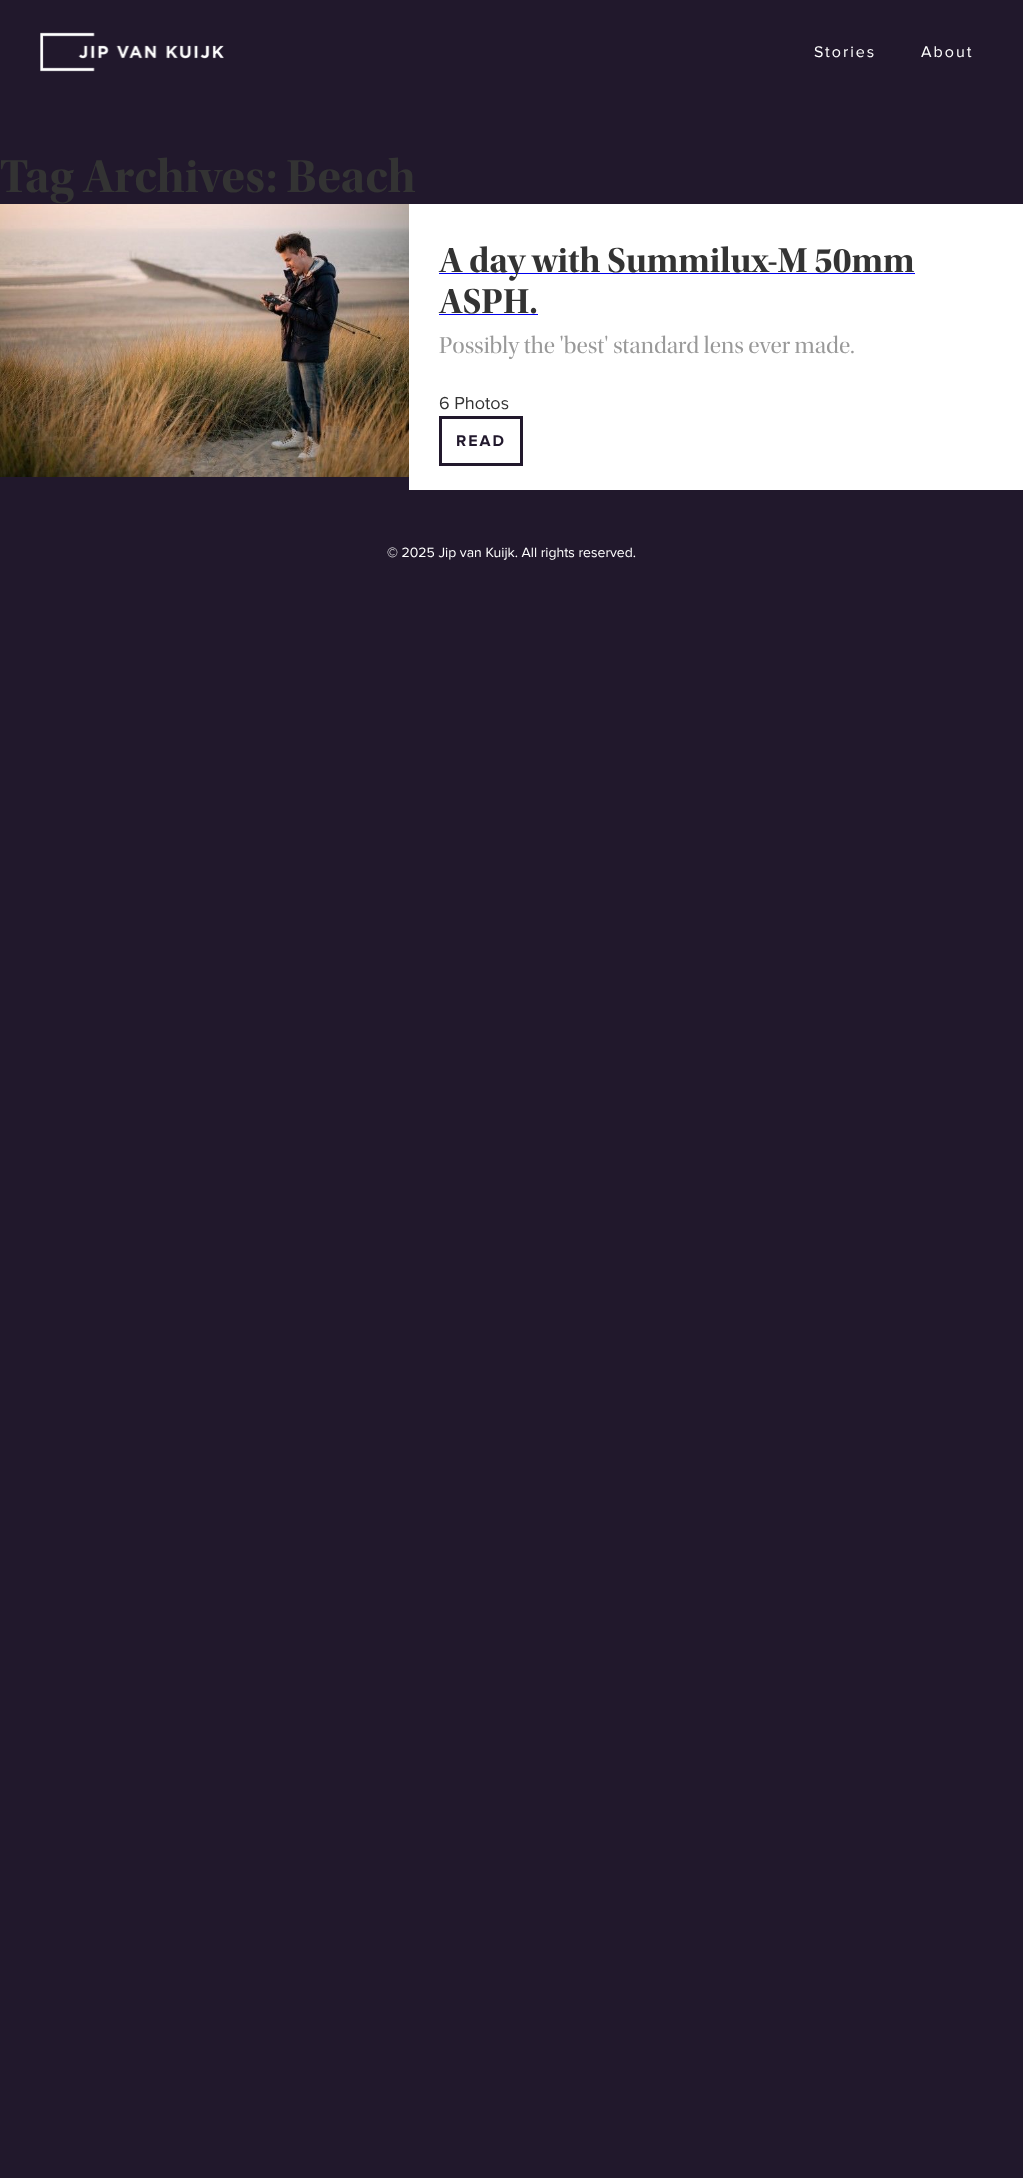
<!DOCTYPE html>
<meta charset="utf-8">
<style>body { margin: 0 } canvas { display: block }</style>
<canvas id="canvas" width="1023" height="2178"></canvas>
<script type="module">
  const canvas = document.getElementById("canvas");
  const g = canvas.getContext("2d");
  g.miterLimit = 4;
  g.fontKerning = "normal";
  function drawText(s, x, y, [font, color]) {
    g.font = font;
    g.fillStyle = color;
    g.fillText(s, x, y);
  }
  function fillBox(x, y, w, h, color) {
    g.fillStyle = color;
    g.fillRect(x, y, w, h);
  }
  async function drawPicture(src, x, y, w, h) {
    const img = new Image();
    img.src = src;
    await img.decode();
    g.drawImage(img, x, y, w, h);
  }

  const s1 = ["16px Proxima Nova", "#FFFFFF"];
  const s2 = ["bold 48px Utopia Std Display", "#333333"];
  const s3 = ["bold 36px Utopia Std Display", "#333333"];
  const s4 = ["24px Utopia Std Display", "#999999"];
  const s5 = ["18px Proxima Nova", "#333333"];
  const s6 = ["bold 16px Proxima Nova", "#21182C"];
  const s7 = ["14px Proxima Nova", "#FFFFFF"];

  fillBox(0, 0, 1023, 2178, "#21182C");
  await drawPicture("pic1.png", 40, 32, 184, 40);
  g.letterSpacing = "2px";
  drawText("Stories", 814, 57, s1);
  drawText("About", 921, 57, s1);
  g.letterSpacing = "0px";
  drawText("Tag Archives: Beach", 0, 192, s2);
  await drawPicture("pic2.png", 0, 204, 409, 273);
  fillBox(409, 204, 614, 286, "#FFFFFF");
  fillBox(439, 273, 476, 1, "#0000EE");
  drawText("A day with Summilux-M 50mm", 439, 272, s3);
  drawText("ASPH.", 439, 313, s3);
  fillBox(439, 314, 99, 1, "#0000EE");
  drawText("Possibly the 'best' standard lens ever made.", 439, 353, s4);
  drawText("6 Photos", 439, 409, s5);
  g.strokeStyle = "#21182C";
  g.lineWidth = 3;
  g.strokeRect(440.5, 417.5, 81, 47);
  g.letterSpacing = "2px";
  drawText("READ", 456, 446, s6);
  g.letterSpacing = "0px";
  drawText("© 2025 Jip van Kuijk. All rights reserved.", 387, 557, s7);
</script>
